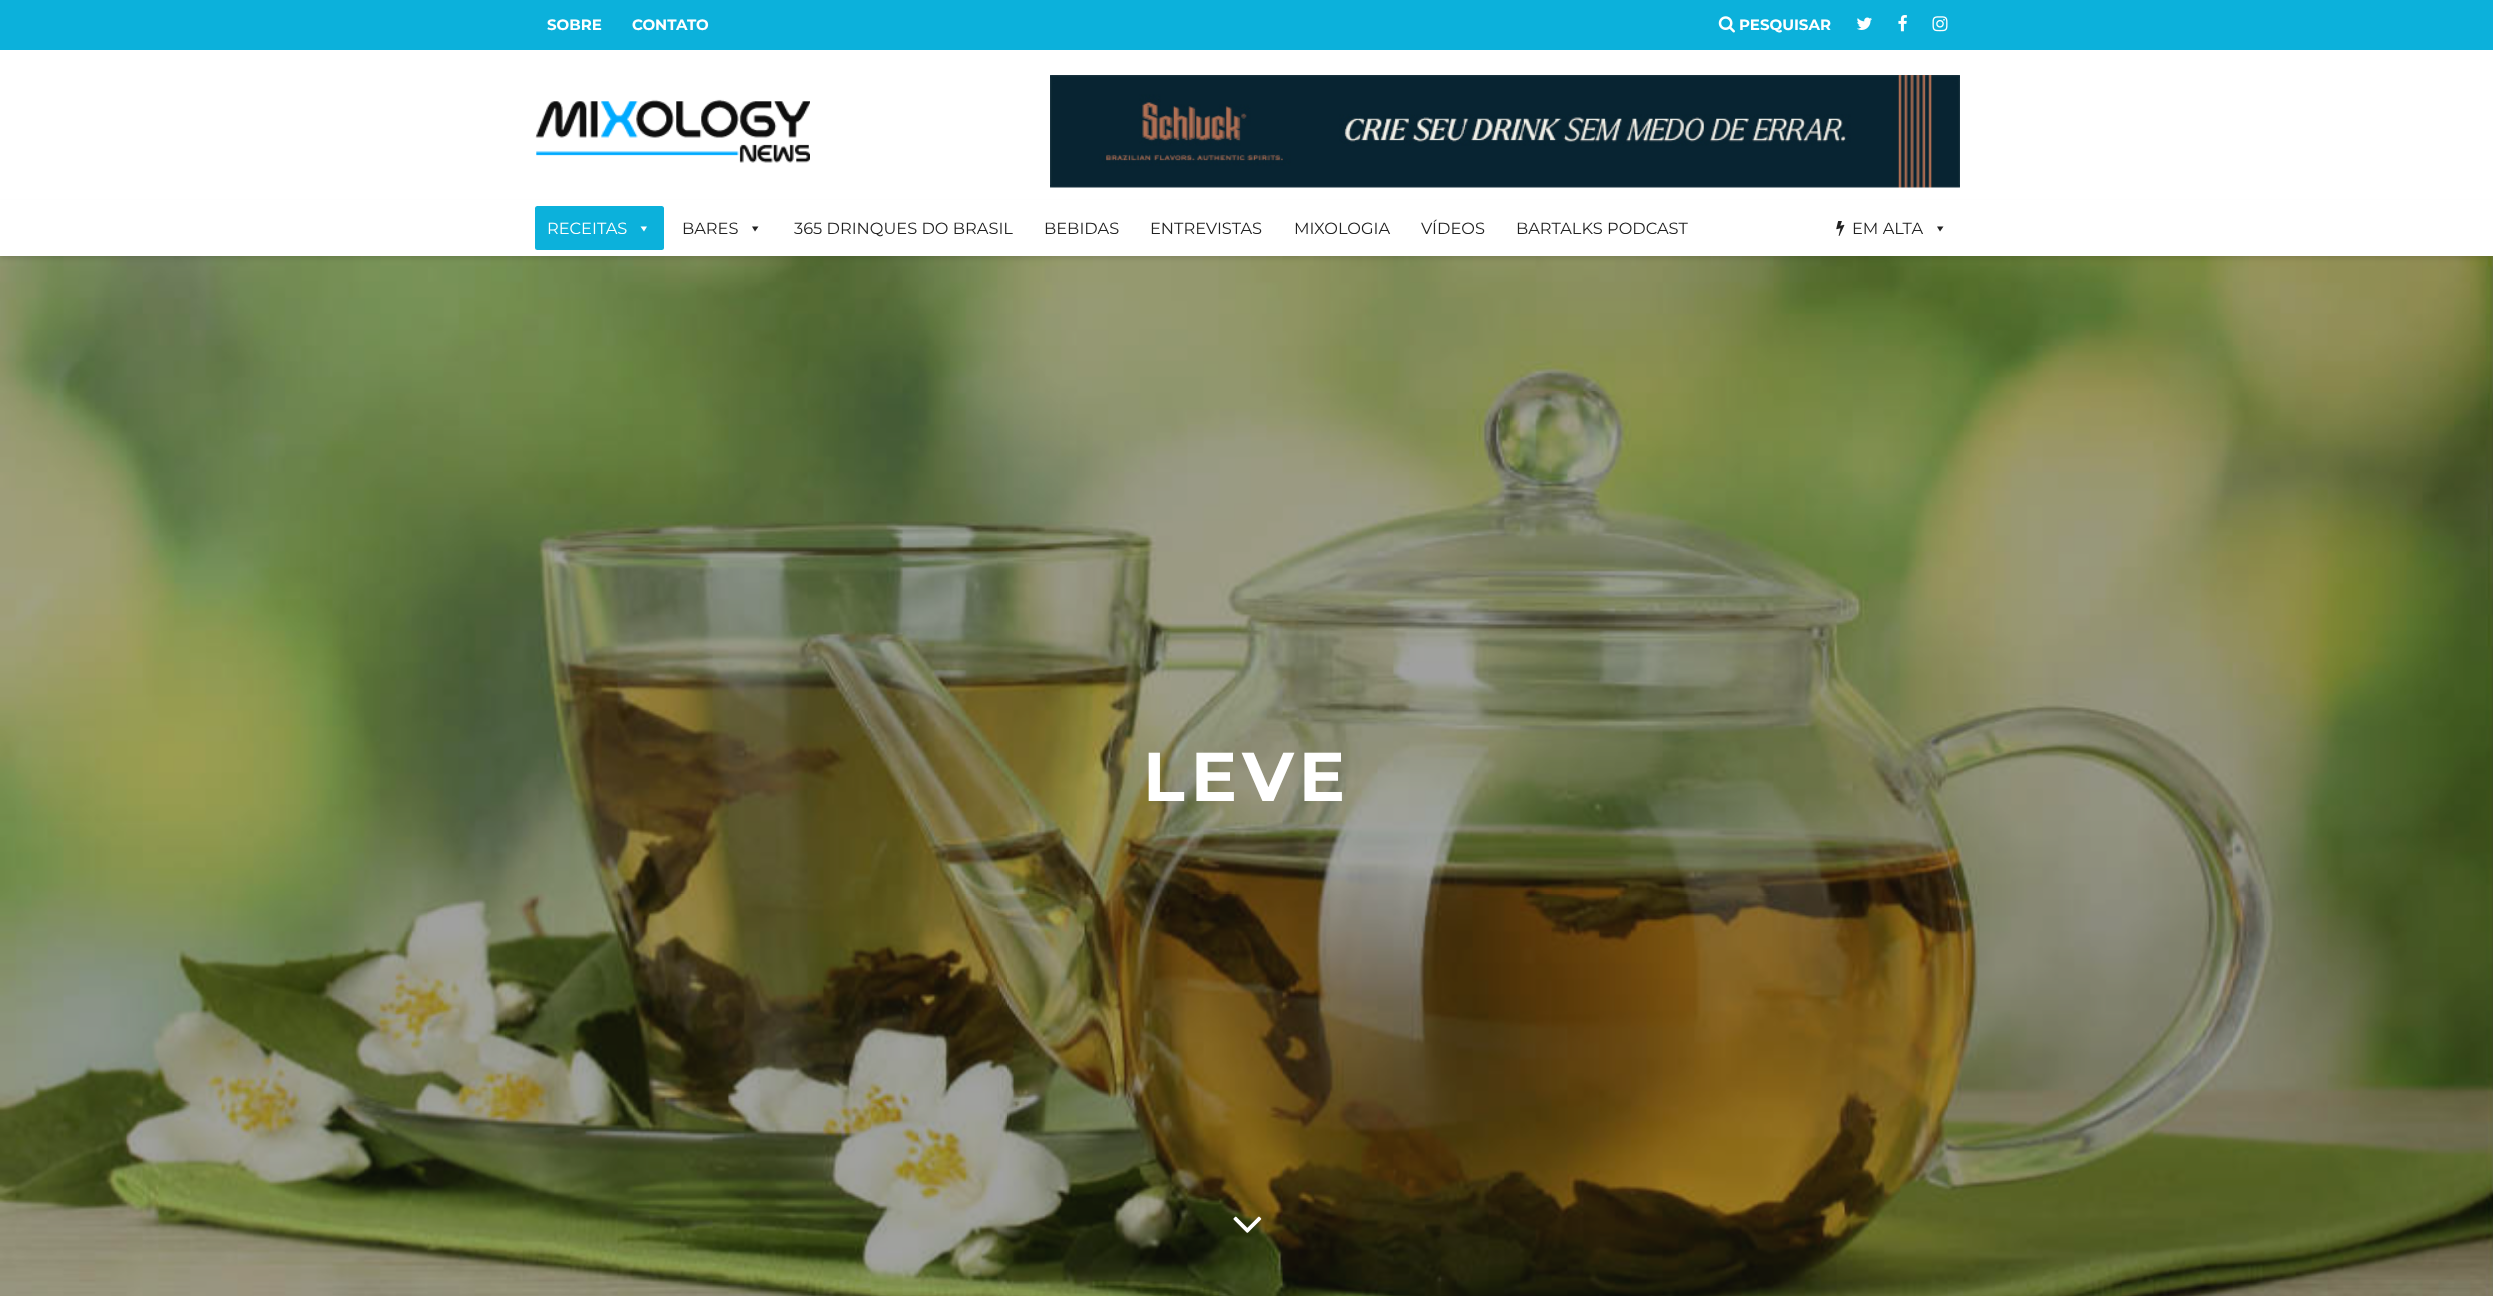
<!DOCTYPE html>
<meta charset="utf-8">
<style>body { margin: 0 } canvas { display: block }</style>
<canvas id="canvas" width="2493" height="1296"></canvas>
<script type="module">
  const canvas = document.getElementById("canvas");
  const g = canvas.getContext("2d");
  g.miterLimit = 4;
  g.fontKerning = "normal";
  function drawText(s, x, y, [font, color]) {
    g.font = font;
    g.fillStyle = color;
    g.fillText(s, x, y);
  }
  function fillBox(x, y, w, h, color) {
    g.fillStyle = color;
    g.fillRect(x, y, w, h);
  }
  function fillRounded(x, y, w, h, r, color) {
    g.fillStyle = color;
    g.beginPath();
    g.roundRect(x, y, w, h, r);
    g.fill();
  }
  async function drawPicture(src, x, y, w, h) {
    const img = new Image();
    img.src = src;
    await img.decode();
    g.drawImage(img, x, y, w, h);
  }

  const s1 = ["bold 15px Montserrat", "#FFFFFF"];
  const s2 = ["16.25px Montserrat", "#FFFFFF"];
  const s3 = ["16.25px Montserrat", "#222222"];
  const s4 = ["bold 69px Montserrat", "#FFFFFF"];

  fillBox(0, 0, 2493, 1296, "#161616");
  fillBox(0, 0, 2493, 50, "#0CB1DB");
  drawText("SOBRE", 547, 30, s1);
  drawText("CONTATO", 632, 30, s1);
  await drawPicture("pic1.png", 1718, 16, 17, 17);
  drawText("PESQUISAR", 1739, 30, s1);
  await drawPicture("pic2.png", 1856, 17, 16, 13);
  await drawPicture("pic3.png", 1898, 15, 9, 17);
  await drawPicture("pic4.png", 1932, 16, 16, 16);
  fillBox(0, 50, 2493, 150, "#FFFFFF");
  await drawPicture("pic5.png", 535, 99, 275, 64);
  await drawPicture("pic6.png", 1050, 75, 910, 113);
  await drawPicture("pic8.png", 0, 256, 2493, 1040);
  g.fillStyle = "rgba(0, 0, 0, 0.1)";
  g.filter = "blur(2px)";
  g.beginPath();
  g.rect(0, 203, 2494, 56);
  g.fill();
  g.filter = "none";
  fillBox(0, 200, 2493, 56, "#FFFFFF");
  fillRounded(535, 206, 129, 44, 2.5, "#0CB1DB");
  drawText("RECEITAS", 547, 234, s2);
  g.beginPath();
  g.moveTo(647, 226.5);
  g.lineTo(644, 231.5);
  g.lineTo(640.5, 226.5);
  g.closePath();
  g.fill();
  drawText("BARES", 682, 234, s3);
  g.beginPath();
  g.moveTo(758.5, 226.5);
  g.lineTo(755, 231.5);
  g.lineTo(752, 226.5);
  g.closePath();
  g.fill();
  drawText("365 DRINQUES DO BRASIL", 794, 234, s3);
  drawText("BEBIDAS", 1044, 234, s3);
  drawText("ENTREVISTAS", 1150, 234, s3);
  drawText("MIXOLOGIA", 1294, 234, s3);
  drawText("VÍDEOS", 1421, 234, s3);
  drawText("BARTALKS PODCAST", 1516, 234, s3);
  await drawPicture("pic7.png", 1836, 221, 9, 15);
  drawText("EM ALTA", 1852, 234, s3);
  g.beginPath();
  g.moveTo(1943.5, 226.5);
  g.lineTo(1940, 231.5);
  g.lineTo(1937, 226.5);
  g.closePath();
  g.fill();
  g.letterSpacing = "6px";
  drawText("LEVE", 1143, 801, s4);
  await drawPicture("pic9.png", 1233, 1216, 29, 17);
</script>
